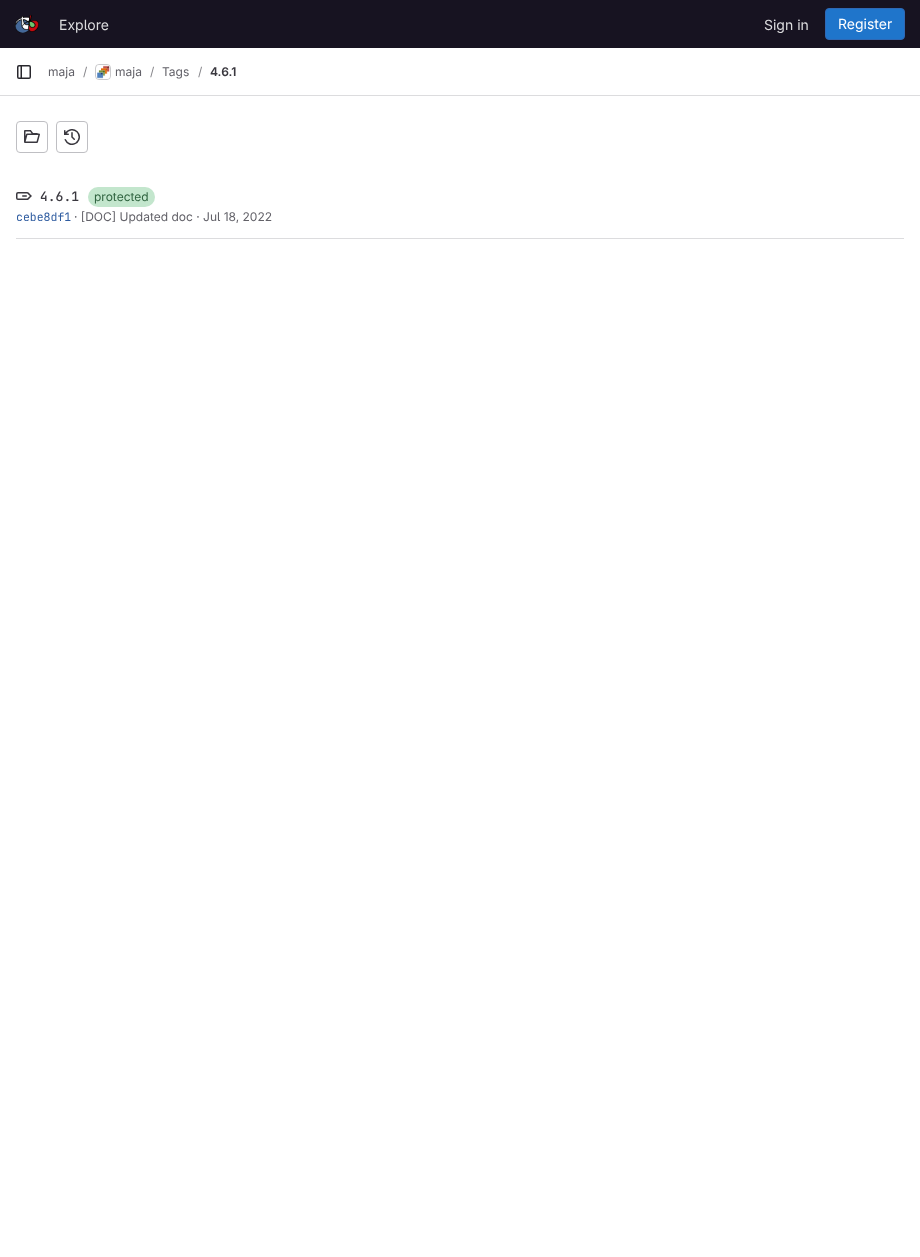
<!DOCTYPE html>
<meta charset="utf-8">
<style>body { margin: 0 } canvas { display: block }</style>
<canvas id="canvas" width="920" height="1257"></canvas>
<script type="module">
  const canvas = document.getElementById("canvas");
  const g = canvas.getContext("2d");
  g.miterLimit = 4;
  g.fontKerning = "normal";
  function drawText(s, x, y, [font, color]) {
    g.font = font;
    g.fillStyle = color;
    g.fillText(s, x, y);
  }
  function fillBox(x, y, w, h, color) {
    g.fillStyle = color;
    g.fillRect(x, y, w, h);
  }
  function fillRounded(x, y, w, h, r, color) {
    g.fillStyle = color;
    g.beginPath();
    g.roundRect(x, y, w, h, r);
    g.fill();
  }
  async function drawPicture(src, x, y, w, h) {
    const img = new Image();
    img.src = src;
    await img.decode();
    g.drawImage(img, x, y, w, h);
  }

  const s1 = ["14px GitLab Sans", "#DCDCDE"];
  const s2 = ["14px GitLab Sans", "#FFFFFF"];
  const s3 = ["12px GitLab Sans", "#626168"];
  const s4 = ["12px GitLab Sans", "#89888D"];
  const s5 = ["600 12px GitLab Sans", "#3A383F"];
  const s6 = ["600 13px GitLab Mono", "#3A383F"];
  const s7 = ["12px GitLab Sans", "#306440"];
  const s8 = ["11.5px GitLab Mono", "#2F5CA0"];

  fillBox(0, 0, 920, 1257, "#FFFFFF");
  fillBox(0, 0, 920, 48, "#171321");
  await drawPicture("pic1.png", 15, 15, 24, 18);
  drawText("Explore", 59, 30, s1);
  drawText("Sign in", 764, 30, s1);
  g.fillStyle = "#1F75CB";
  g.beginPath();
  g.roundRect(825.5, 8.5, 79, 31, 3.5);
  g.fill();
  g.strokeStyle = "#2F68B4";
  g.stroke();
  drawText("Register", 838, 29, s2);
  fillBox(0, 95, 920, 1, "#DCDCDE");
  await drawPicture("pic2.png", 17, 65, 14, 14);
  drawText("maja", 48, 76, s3);
  drawText("/", 83, 76, s4);
  g.beginPath();
  g.roundRect(95.5, 64.5, 15, 15, 3.5);
  g.strokeStyle = "#DCDCDE";
  g.stroke();
  await drawPicture("pic3.png", 97, 65, 13, 14);
  g.beginPath();
  g.roundRect(95.5, 64.5, 15, 15, 3.5);
  g.strokeStyle = "rgba(5, 5, 6, 0.08)";
  g.stroke();
  drawText("maja", 115, 76, s3);
  drawText("/", 150, 76, s4);
  drawText("Tags", 162, 76, s3);
  drawText("/", 198, 76, s4);
  drawText("4.6.1", 210, 76, s5);
  fillBox(16, 238, 888, 1, "#DCDCDE");
  g.beginPath();
  g.roundRect(16.5, 121.5, 31, 31, 3.5);
  g.strokeStyle = "#BFBFC3";
  g.stroke();
  await drawPicture("pic4.png", 24, 130, 16, 13);
  g.beginPath();
  g.roundRect(56.5, 121.5, 31, 31, 3.5);
  g.stroke();
  await drawPicture("pic5.png", 64, 129, 16, 16);
  await drawPicture("pic6.png", 16, 192, 16, 8);
  drawText("4.6.1", 40, 201, s6);
  fillRounded(88, 187, 67, 20, 10, "#C3E6CD");
  drawText("protected", 94, 201, s7);
  drawText("cebe8df1", 16, 221, s8);
  drawText("· [DOC] Updated doc · Jul 18, 2022", 74, 221, s3);
</script>
